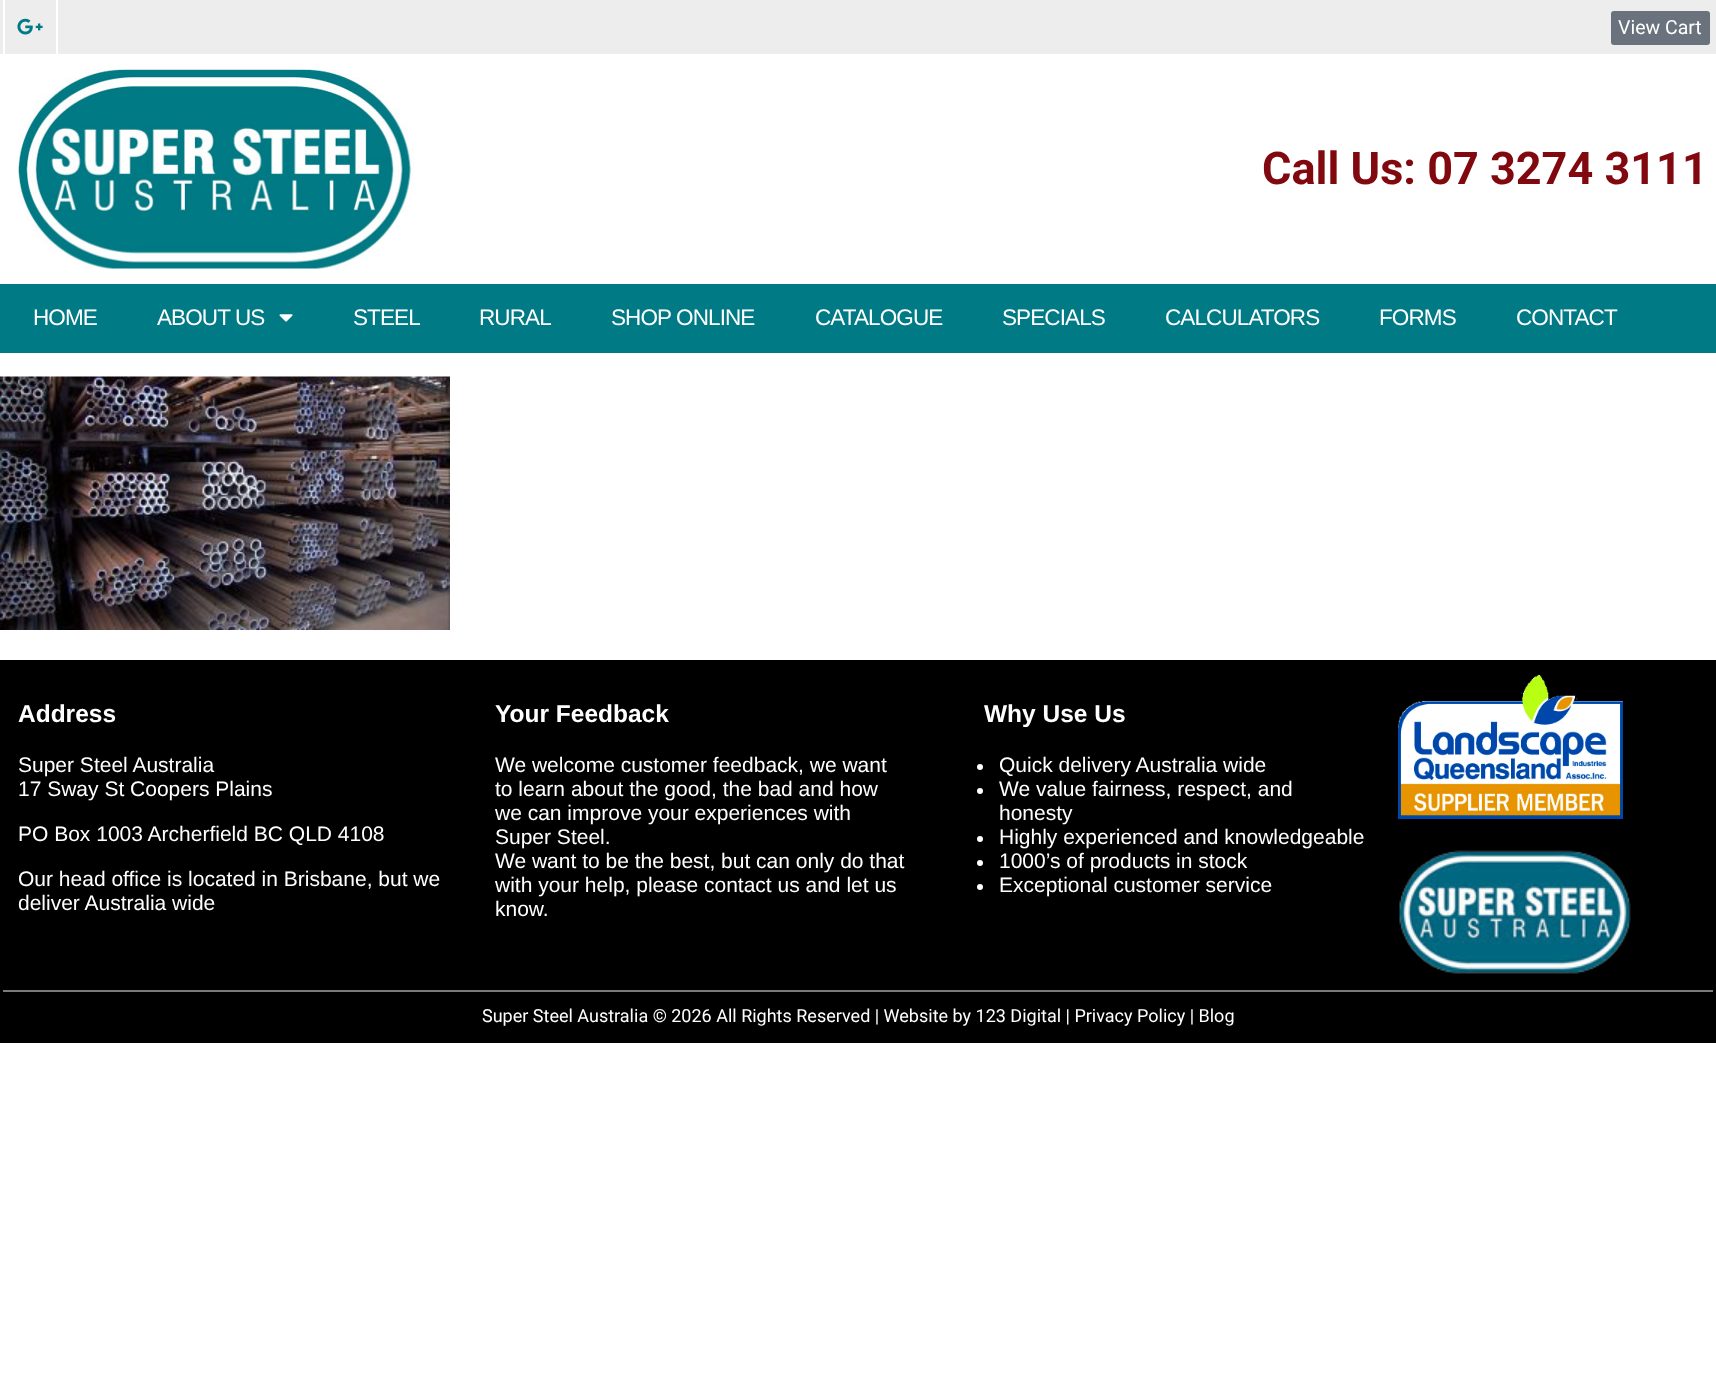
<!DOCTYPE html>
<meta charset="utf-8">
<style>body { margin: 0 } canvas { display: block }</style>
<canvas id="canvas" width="1716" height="1377"></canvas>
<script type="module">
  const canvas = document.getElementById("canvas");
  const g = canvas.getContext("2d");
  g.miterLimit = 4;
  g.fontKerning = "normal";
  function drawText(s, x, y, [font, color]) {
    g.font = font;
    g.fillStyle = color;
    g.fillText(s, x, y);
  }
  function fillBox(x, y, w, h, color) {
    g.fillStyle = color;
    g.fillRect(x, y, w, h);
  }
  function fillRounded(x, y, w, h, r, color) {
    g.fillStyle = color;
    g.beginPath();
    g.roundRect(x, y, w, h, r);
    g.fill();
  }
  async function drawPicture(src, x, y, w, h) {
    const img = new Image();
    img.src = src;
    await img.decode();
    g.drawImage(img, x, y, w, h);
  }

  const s1 = ["19.5px Roboto", "#FFFFFF"];
  const s2 = ["bold 45px Roboto", "#81080F"];
  const s3 = ["22.5px Liberation Sans", "#FFFFFF"];
  const s4 = ["bold 24.5px Liberation Sans", "#FFFFFF"];
  const s5 = ["21px Liberation Sans", "#FFFFFF"];
  const s6 = ["18px Roboto", "#FFFFFF"];

  fillBox(0, 0, 1716, 1377, "#FFFFFF");
  fillBox(0, 0, 1716, 54, "#EDEDED");
  fillBox(56, 0, 2, 54, "#FFFFFF");
  fillBox(3, 0, 2, 54, "#FFFFFF");
  await drawPicture("pic1.png", 17, 18, 26, 17);
  fillRounded(1611, 11, 99, 34, 3, "#69727D");
  drawText("View Cart", 1618, 34, s1);
  await drawPicture("pic2.png", 18, 69, 396, 200);
  drawText("Call Us: 07 3274 3111", 1262, 184, s2);
  fillBox(0, 284, 1716, 69, "#007A85");
  g.letterSpacing = "-0.9px";
  drawText("HOME", 33, 325, s3);
  drawText("ABOUT US", 157, 325, s3);
  await drawPicture("pic3.png", 279, 314, 14, 8);
  drawText("STEEL", 353, 325, s3);
  drawText("RURAL", 479, 325, s3);
  drawText("SHOP ONLINE", 611, 325, s3);
  drawText("CATALOGUE", 815, 325, s3);
  drawText("SPECIALS", 1002, 325, s3);
  drawText("CALCULATORS", 1165, 325, s3);
  drawText("FORMS", 1379, 325, s3);
  drawText("CONTACT", 1516, 325, s3);
  await drawPicture("pic4.png", 0, 376, 450, 254);
  fillBox(0, 660, 1716, 383, "#000000");
  g.letterSpacing = "0px";
  drawText("Address", 18, 722, s4);
  drawText("Super Steel Australia", 18, 772, s5);
  drawText("17 Sway St Coopers Plains", 18, 796, s5);
  drawText("PO Box 1003 Archerfield BC QLD 4108", 18, 841, s5);
  drawText("Our head office is located in Brisbane, but we", 18, 886, s5);
  drawText("deliver Australia wide", 18, 910, s5);
  drawText("Your Feedback", 495, 722, s4);
  drawText("We welcome customer feedback, we want", 495, 772, s5);
  drawText("to learn about the good, the bad and how", 495, 796, s5);
  drawText("we can improve your experiences with", 495, 820, s5);
  drawText("Super Steel.", 495, 844, s5);
  drawText("We want to be the best, but can only do that", 495, 868, s5);
  drawText("with your help, please contact us and let us", 495, 892, s5);
  drawText("know.", 495, 916, s5);
  drawText("Why Use Us", 984, 722, s4);
  g.beginPath();
  g.arc(980, 767, 3, 0, Math.PI * 2);
  g.fill();
  drawText("Quick delivery Australia wide", 999, 772, s5);
  g.beginPath();
  g.arc(980, 791, 3, 0, Math.PI * 2);
  g.fill();
  drawText("We value fairness, respect, and", 999, 796, s5);
  drawText("honesty", 999, 820, s5);
  g.beginPath();
  g.arc(980, 839, 3, 0, Math.PI * 2);
  g.fill();
  drawText("Highly experienced and knowledgeable", 999, 844, s5);
  g.beginPath();
  g.arc(980, 863, 3, 0, Math.PI * 2);
  g.fill();
  drawText("1000’s of products in stock", 999, 868, s5);
  g.beginPath();
  g.arc(980, 887, 3, 0, Math.PI * 2);
  g.fill();
  drawText("Exceptional customer service", 999, 892, s5);
  await drawPicture("pic5.png", 1398, 675, 225, 144);
  await drawPicture("pic6.png", 1399, 850, 232, 124);
  fillBox(3, 990, 1710, 2, "#7A7A7A");
  drawText("Super Steel Australia © 2026 All Rights Reserved | Website by 123 Digital | Privacy Policy | Blog", 482, 1022, s6);
</script>
